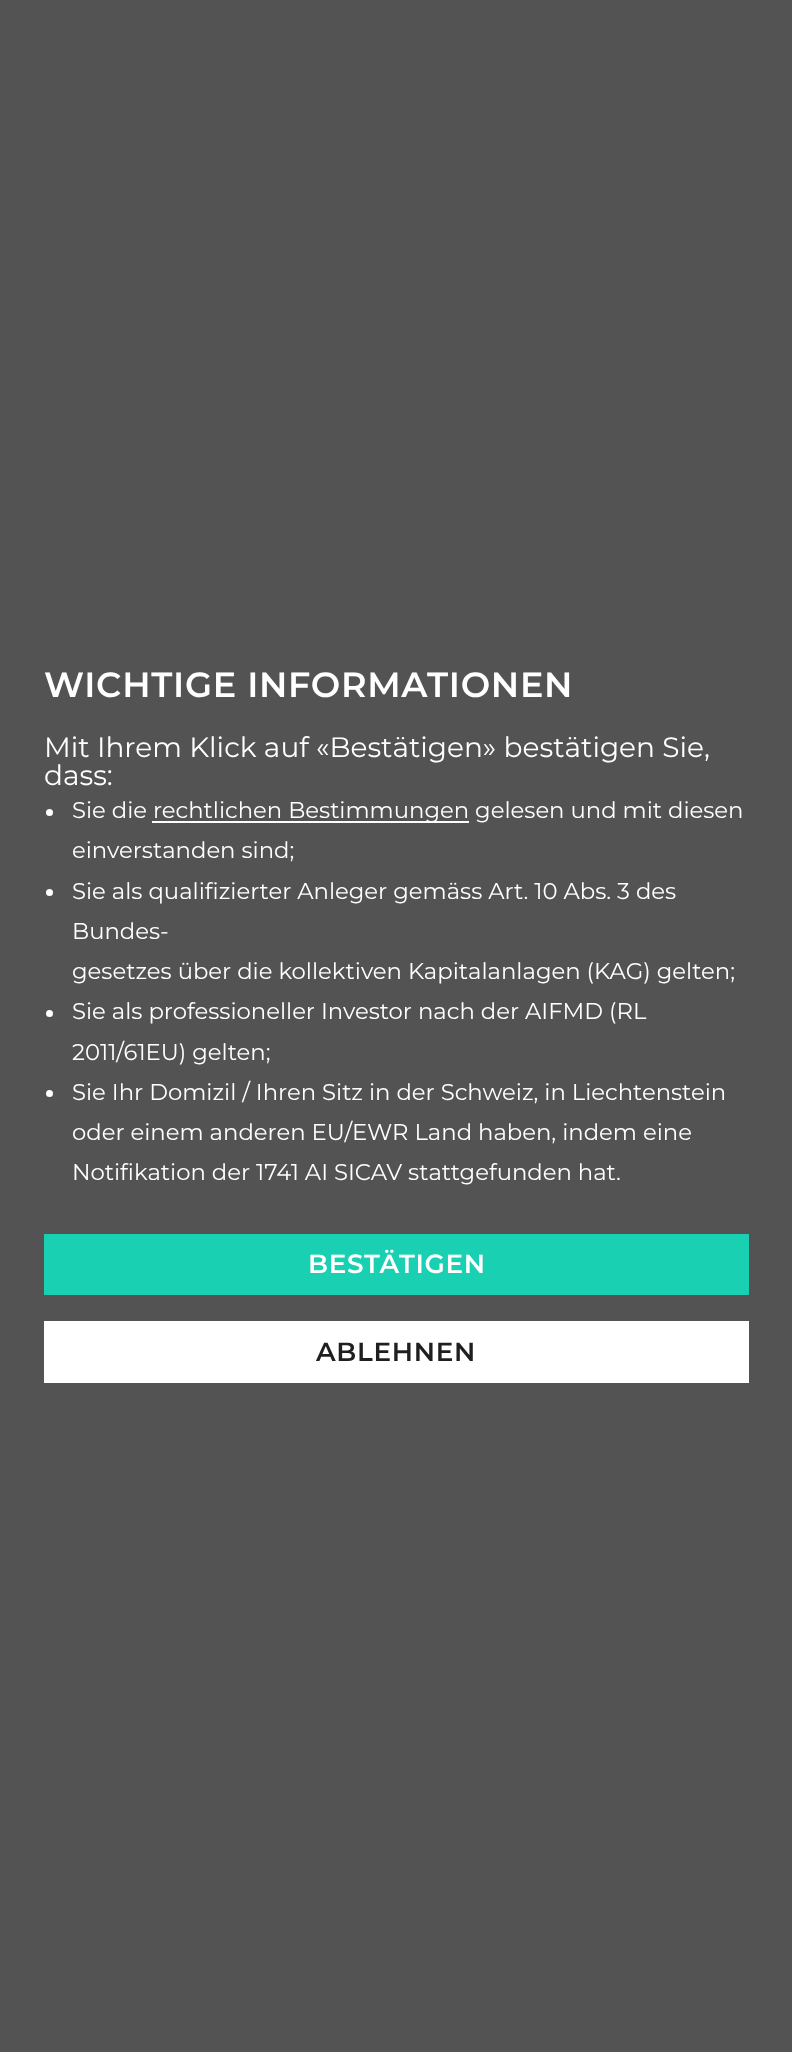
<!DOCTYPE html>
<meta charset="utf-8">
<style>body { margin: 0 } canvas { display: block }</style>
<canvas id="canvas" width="792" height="2052"></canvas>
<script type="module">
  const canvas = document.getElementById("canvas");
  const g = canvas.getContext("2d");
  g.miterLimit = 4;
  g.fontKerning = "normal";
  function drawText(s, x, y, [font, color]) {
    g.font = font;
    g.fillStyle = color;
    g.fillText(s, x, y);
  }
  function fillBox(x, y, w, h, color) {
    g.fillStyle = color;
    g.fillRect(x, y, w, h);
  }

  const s1 = ["600 35px Montserrat", "#FFFFFF"];
  const s2 = ["28px Montserrat", "#FFFFFF"];
  const s3 = ["22.75px Montserrat", "#FFFFFF"];
  const s4 = ["600 26.25px Montserrat", "#FFFFFF"];
  const s5 = ["600 26.25px Montserrat", "#1F1F1F"];

  fillBox(0, 0, 792, 2052, "#535353");
  g.letterSpacing = "0.7px";
  drawText("WICHTIGE INFORMATIONEN", 44, 697, s1);
  g.letterSpacing = "0px";
  drawText("Mit Ihrem Klick auf «Bestätigen» bestätigen Sie,", 44, 757, s2);
  drawText("dass:", 44, 785, s2);
  g.beginPath();
  g.arc(49.5, 812.5, 3.5, 0, Math.PI * 2);
  g.fill();
  drawText("Sie die", 72, 818, s3);
  fillBox(152, 821, 317, 2, "#FFFFFF");
  drawText("rechtlichen Bestimmungen gelesen und mit diesen", 153, 818, s3);
  drawText("einverstanden sind;", 72, 858, s3);
  g.beginPath();
  g.arc(49.5, 892.5, 3.5, 0, Math.PI * 2);
  g.fill();
  drawText("Sie als qualifizierter Anleger gemäss Art. 10 Abs. 3 des", 72, 899, s3);
  drawText("Bundes-", 72, 939, s3);
  drawText("gesetzes über die kollektiven Kapitalanlagen (KAG) gelten;", 72, 979, s3);
  g.beginPath();
  g.arc(49.5, 1013.5, 3.5, 0, Math.PI * 2);
  g.fill();
  drawText("Sie als professioneller Investor nach der AIFMD (RL", 72, 1019, s3);
  drawText("2011/61EU) gelten;", 72, 1060, s3);
  g.beginPath();
  g.arc(49.5, 1093.5, 3.5, 0, Math.PI * 2);
  g.fill();
  drawText("Sie Ihr Domizil / Ihren Sitz in der Schweiz, in Liechtenstein", 72, 1100, s3);
  drawText("oder einem anderen EU/EWR Land haben, indem eine", 72, 1140, s3);
  drawText("Notifikation der 1741 AI SICAV stattgefunden hat.", 72, 1180, s3);
  fillBox(44, 1234, 705, 61, "#1AD0B3");
  g.letterSpacing = "0.7px";
  drawText("BESTÄTIGEN", 308, 1273, s4);
  fillBox(44, 1321, 705, 62, "#FFFFFF");
  drawText("ABLEHNEN", 316, 1361, s5);
</script>
